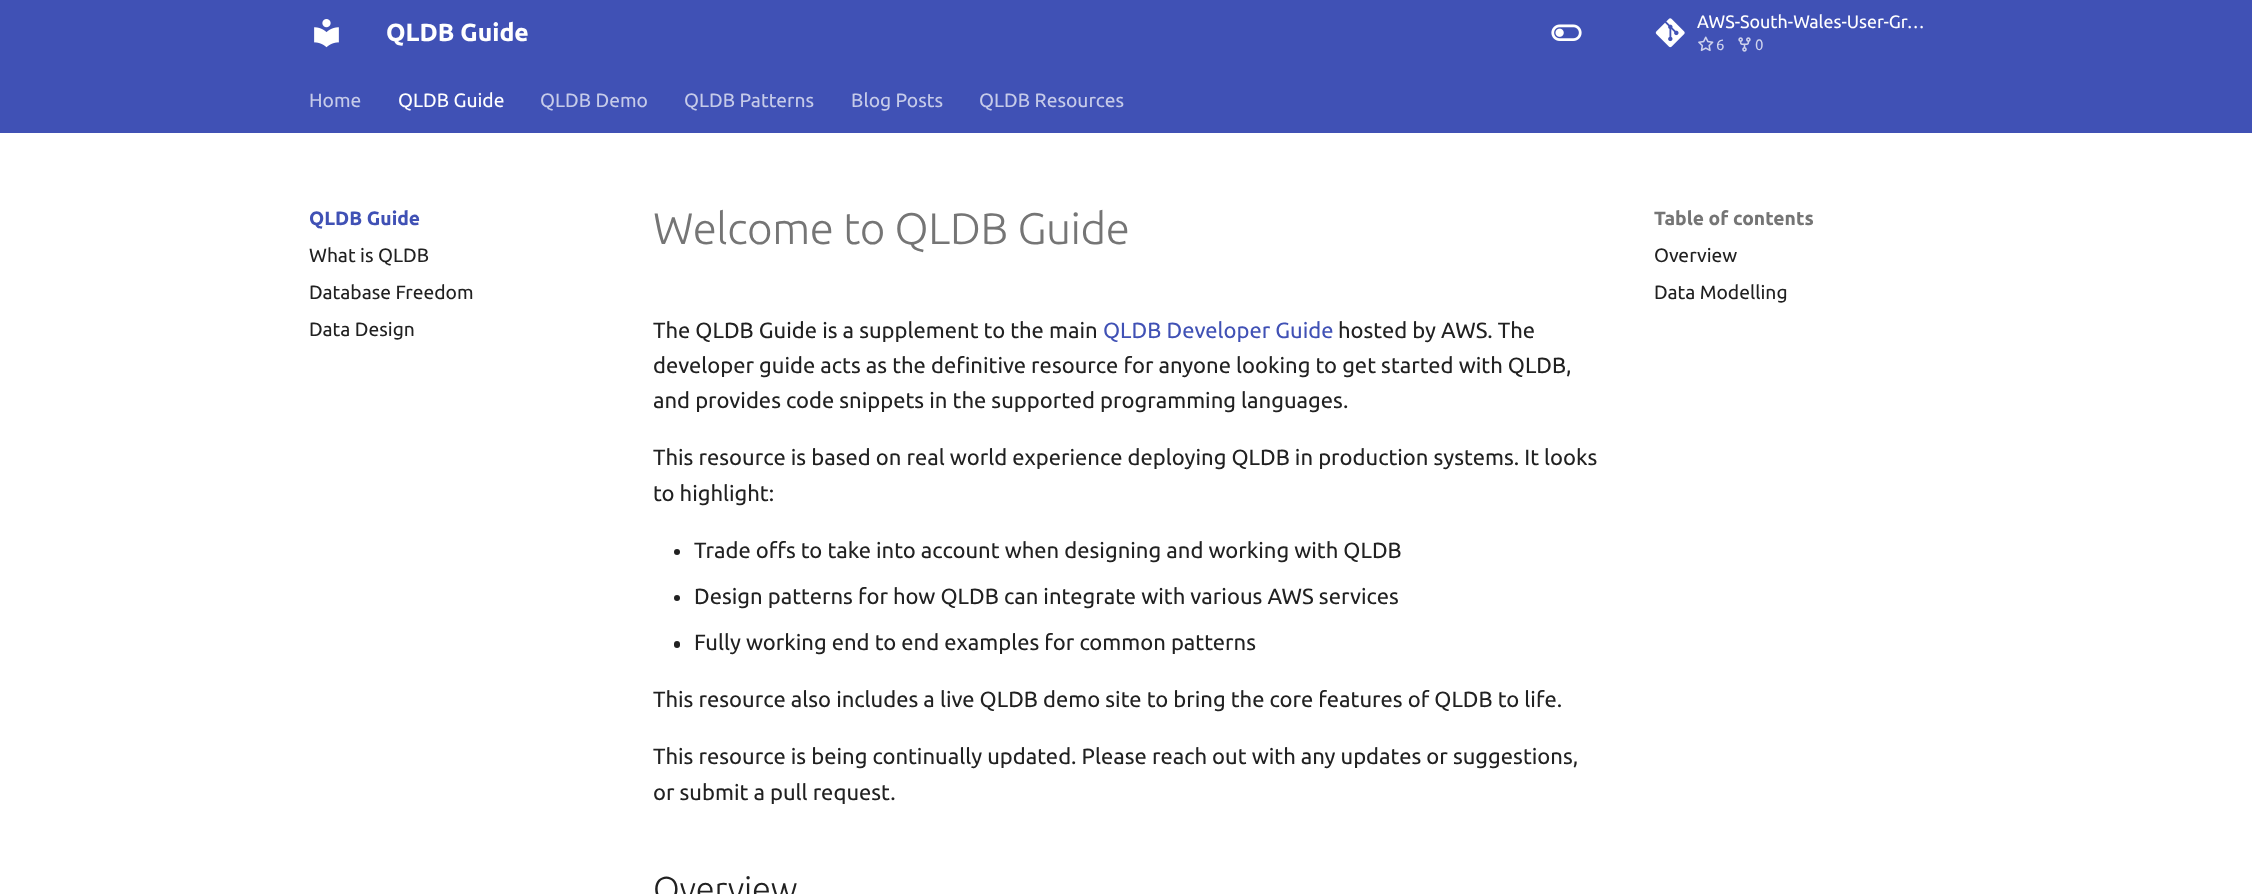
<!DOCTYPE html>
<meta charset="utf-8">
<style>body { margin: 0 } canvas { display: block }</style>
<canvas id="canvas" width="2252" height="894"></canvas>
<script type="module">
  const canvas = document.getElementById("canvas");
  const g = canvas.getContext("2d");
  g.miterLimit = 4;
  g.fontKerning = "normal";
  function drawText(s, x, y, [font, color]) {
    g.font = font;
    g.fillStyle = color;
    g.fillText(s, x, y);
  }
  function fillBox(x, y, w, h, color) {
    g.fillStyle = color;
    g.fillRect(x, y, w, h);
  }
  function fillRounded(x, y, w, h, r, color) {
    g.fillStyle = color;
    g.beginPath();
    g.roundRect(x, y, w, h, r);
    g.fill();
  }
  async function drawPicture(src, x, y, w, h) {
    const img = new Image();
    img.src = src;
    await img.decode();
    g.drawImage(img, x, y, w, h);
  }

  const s1 = ["bold 24.75px Ubuntu", "#FFFFFF"];
  const s2 = ["17.9px Ubuntu", "#FFFFFF"];
  const s3 = ["15px Ubuntu", "#CFD4ED"];
  const s4 = ["19.25px Ubuntu", "#C6CBE9"];
  const s5 = ["19.25px Ubuntu", "#FFFFFF"];
  const s6 = ["bold 19.25px Ubuntu", "#4051B5"];
  const s7 = ["19.25px Ubuntu", "#212121"];
  const s8 = ["300 44px Ubuntu", "#757575"];
  const s9 = ["22px Ubuntu", "#212121"];
  const s10 = ["22px Ubuntu", "#4051B5"];
  const s11 = ["300 34.5px Ubuntu", "#212121"];
  const s12 = ["bold 19.25px Ubuntu", "#757575"];

  fillBox(0, 0, 2252, 894, "#FFFFFF");
  fillBox(0, 0, 2252, 133, "#4051B5");
  await drawPicture("pic1.png", 314, 19, 25, 29);
  drawText("QLDB Guide", 386, 41, s1);
  await drawPicture("pic2.png", 1551, 24, 31, 17);
  await drawPicture("pic3.png", 1655, 18, 30, 30);
  drawText("AWS-South-Wales-User-Gr…", 1697, 28, s2);
  await drawPicture("pic4.png", 1698, 36, 16, 16);
  drawText("6", 1716, 50, s3);
  await drawPicture("pic5.png", 1738, 37, 13, 15);
  drawText("0", 1755, 50, s3);
  drawText("Home", 309, 107, s4);
  drawText("QLDB Guide", 398, 107, s5);
  drawText("QLDB Demo", 540, 107, s4);
  drawText("QLDB Patterns", 684, 107, s4);
  drawText("Blog Posts", 851, 107, s4);
  drawText("QLDB Resources", 979, 107, s4);
  g.save();
  g.beginPath();
  g.rect(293, 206, 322, 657);
  g.clip();
  g.beginPath();
  g.moveTo(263, 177);
  g.lineTo(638, 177);
  g.lineTo(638, 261);
  g.lineTo(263, 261);
  g.closePath();
  g.moveTo(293, 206);
  g.lineTo(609, 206);
  g.lineTo(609, 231);
  g.lineTo(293, 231);
  g.closePath();
  g.clip("evenodd");
  g.fillStyle = "#FFFFFF";
  g.filter = "blur(5.5px)";
  g.beginPath();
  g.rect(281, 195, 339, 48);
  g.fill();
  g.filter = "none";
  g.restore();
  drawText("QLDB Guide", 309, 225, s6);
  drawText("What is QLDB", 309, 262, s7);
  drawText("Database Freedom", 309, 299, s7);
  drawText("Data Design", 309, 336, s7);
  g.letterSpacing = "-0.4px";
  drawText("Welcome to QLDB Guide", 653, 244, s8);
  g.letterSpacing = "0px";
  drawText("The QLDB Guide is a supplement to the main", 653, 338, s9);
  drawText("QLDB Developer Guide", 1103, 338, s10);
  drawText("hosted by AWS. The", 1338, 338, s9);
  drawText("developer guide acts as the definitive resource for anyone looking to get started with QLDB,", 653, 373, s9);
  drawText("and provides code snippets in the supported programming languages.", 653, 408, s9);
  drawText("This resource is based on real world experience deploying QLDB in production systems. It looks", 653, 465, s9);
  drawText("to highlight:", 653, 501, s9);
  g.beginPath();
  g.arc(677, 552, 3, 0, Math.PI * 2);
  g.fill();
  drawText("Trade offs to take into account when designing and working with QLDB", 694, 558, s9);
  g.beginPath();
  g.arc(677, 598, 3, 0, Math.PI * 2);
  g.fill();
  drawText("Design patterns for how QLDB can integrate with various AWS services", 694, 604, s9);
  fillRounded(674, 641, 6, 7, 3, "#212121");
  drawText("Fully working end to end examples for common patterns", 694, 650, s9);
  drawText("This resource also includes a live QLDB demo site to bring the core features of QLDB to life.", 653, 707, s9);
  drawText("This resource is being continually updated. Please reach out with any updates or suggestions,", 653, 764, s9);
  drawText("or submit a pull request.", 653, 800, s9);
  g.letterSpacing = "-0.25px";
  drawText("Overview", 653, 901, s11);
  g.save();
  g.beginPath();
  g.rect(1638, 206, 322, 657);
  g.clip();
  g.beginPath();
  g.moveTo(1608, 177);
  g.lineTo(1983, 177);
  g.lineTo(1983, 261);
  g.lineTo(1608, 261);
  g.closePath();
  g.moveTo(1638, 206);
  g.lineTo(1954, 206);
  g.lineTo(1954, 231);
  g.lineTo(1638, 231);
  g.closePath();
  g.clip("evenodd");
  g.fillStyle = "#FFFFFF";
  g.filter = "blur(5.5px)";
  g.beginPath();
  g.rect(1626, 195, 339, 48);
  g.fill();
  g.filter = "none";
  g.restore();
  g.letterSpacing = "0px";
  drawText("Table of contents", 1654, 225, s12);
  drawText("Overview", 1654, 262, s7);
  drawText("Data Modelling", 1654, 299, s7);
</script>
